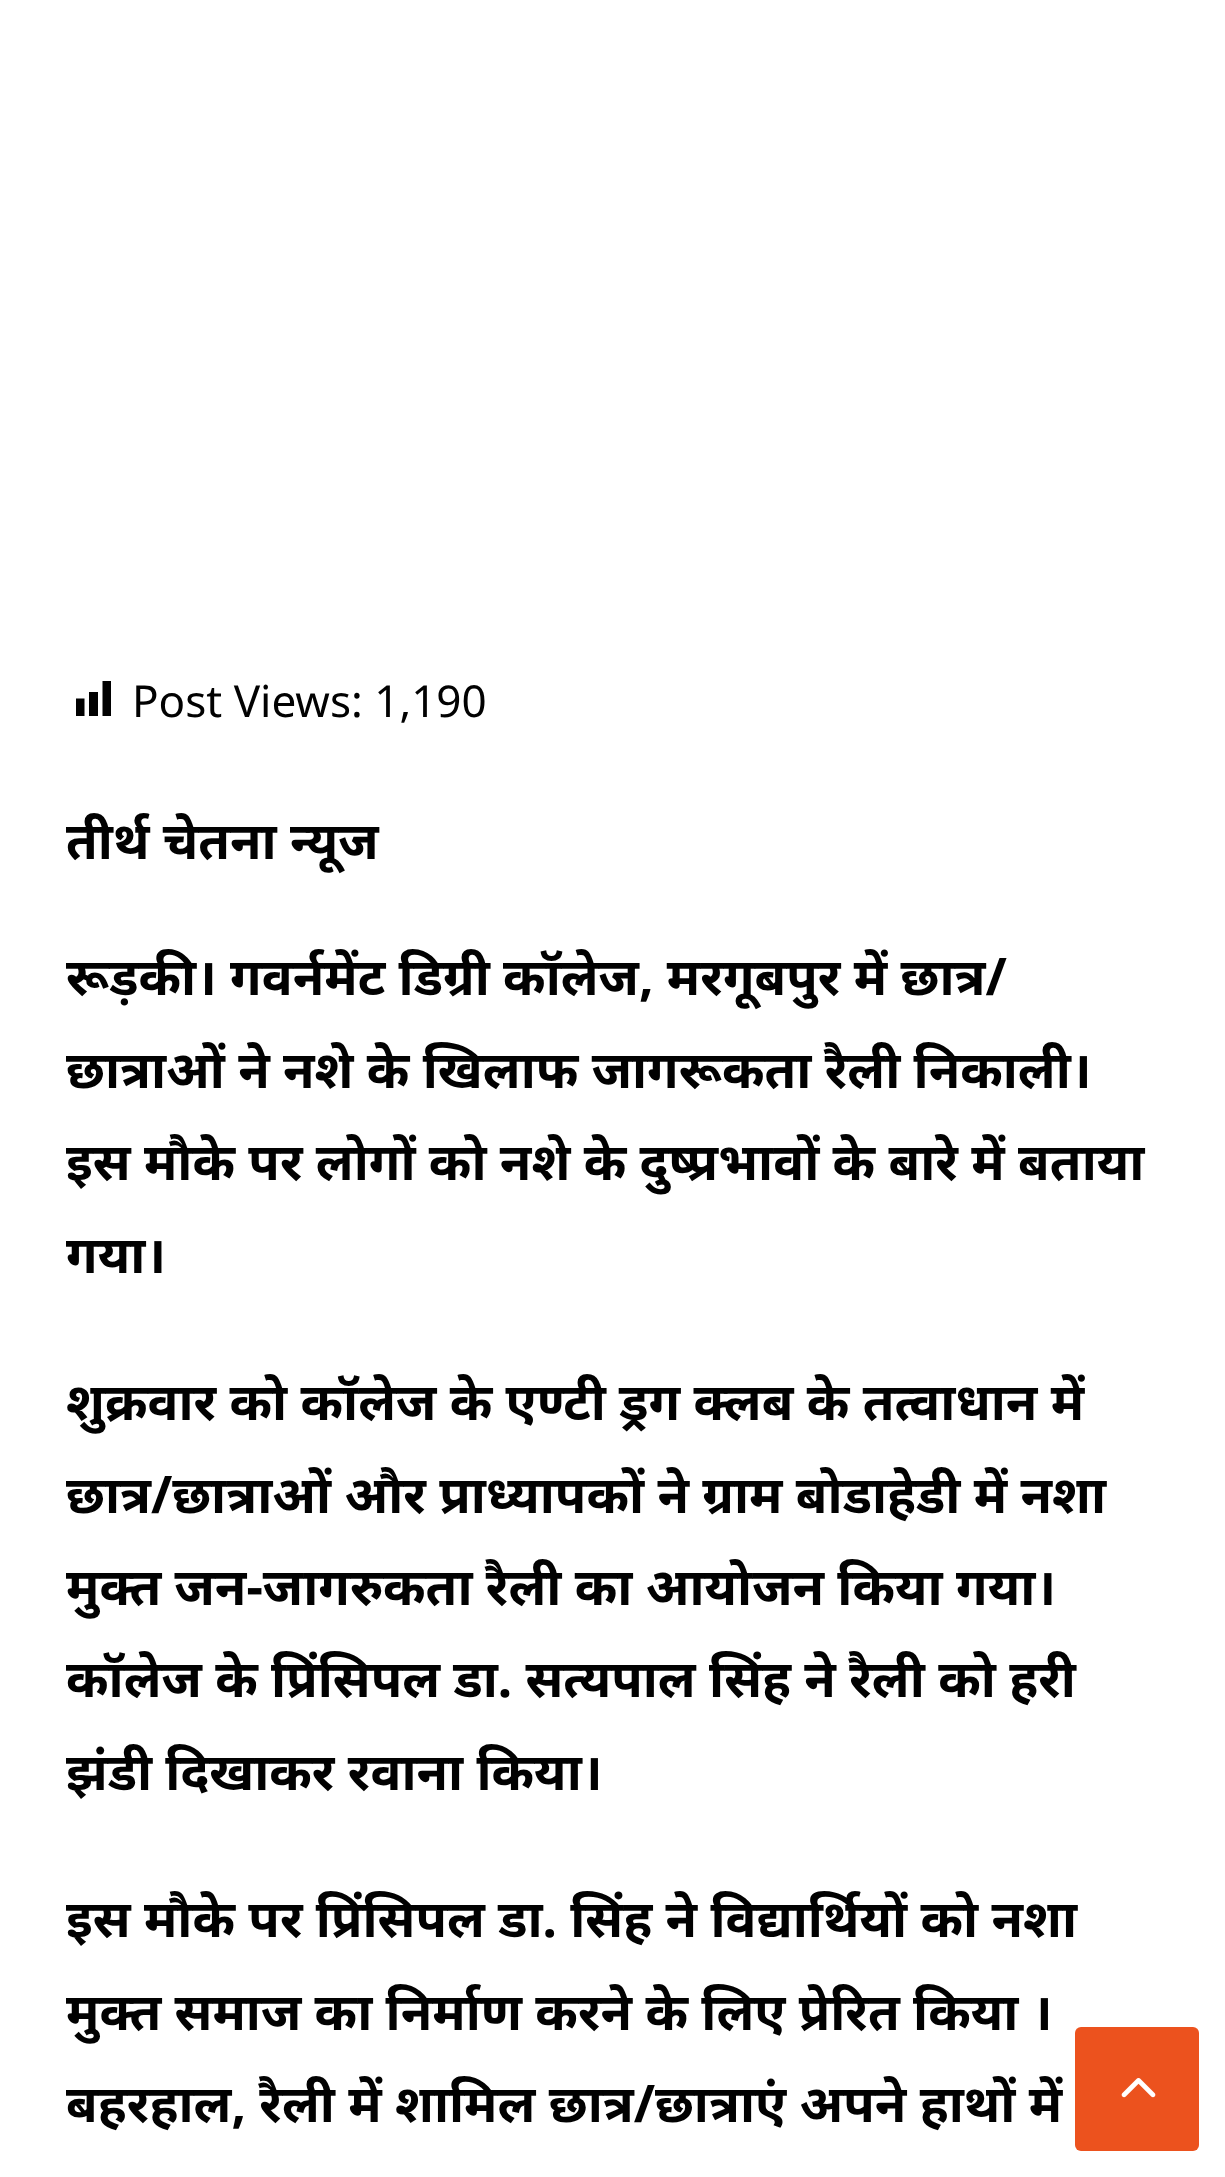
<!DOCTYPE html>
<meta charset="utf-8">
<style>body { margin: 0 } canvas { display: block }</style>
<canvas id="canvas" width="1225" height="2177"></canvas>
<script type="module">
  const canvas = document.getElementById("canvas");
  const g = canvas.getContext("2d");
  g.miterLimit = 4;
  g.fontKerning = "normal";
  function drawText(s, x, y, [font, color]) {
    g.font = font;
    g.fillStyle = color;
    g.fillText(s, x, y);
  }
  function fillBox(x, y, w, h, color) {
    g.fillStyle = color;
    g.fillRect(x, y, w, h);
  }
  function fillRounded(x, y, w, h, r, color) {
    g.fillStyle = color;
    g.beginPath();
    g.roundRect(x, y, w, h, r);
    g.fill();
  }
  async function drawPicture(src, x, y, w, h) {
    const img = new Image();
    img.src = src;
    await img.decode();
    g.drawImage(img, x, y, w, h);
  }

  const s1 = ["44px Noto Sans", "#010101"];
  const s2 = ["bold 51.3px Noto Sans", "#010101"];

  fillBox(0, 0, 1225, 2177, "#FFFFFF");
  g.fillStyle = "#010101";
  g.beginPath();
  g.moveTo(111, 716);
  g.lineTo(111, 681);
  g.lineTo(102.5, 681);
  g.lineTo(102.5, 716);
  g.closePath();
  g.moveTo(98, 716);
  g.lineTo(98, 692);
  g.lineTo(89, 692);
  g.lineTo(89, 716);
  g.closePath();
  g.moveTo(84.5, 716);
  g.lineTo(84.5, 698.5);
  g.lineTo(76, 698.5);
  g.lineTo(76, 716);
  g.closePath();
  g.fill();
  drawText("Post Views: 1,190", 132, 717, s1);
  drawText("तीर्थ चेतना न्यूज", 66, 859, s2);
  drawText("रूड़की। गवर्नमेंट डिग्री कॉलेज, मरगूबपुर में छात्र/", 66, 995, s2);
  drawText("छात्राओं ने नशे के खिलाफ जागरूकता रैली निकाली।", 66, 1088, s2);
  drawText("इस मौके पर लोगों को नशे के दुष्प्रभावों के बारे में बताया", 66, 1180, s2);
  drawText("गया।", 66, 1273, s2);
  drawText("शुक्रवार को कॉलेज के एण्टी ड्रग क्लब के तत्वाधान में", 66, 1420, s2);
  drawText("छात्र/छात्राओं और प्राध्यापकों ने ग्राम बोडाहेडी में नशा", 66, 1513, s2);
  drawText("मुक्त जन-जागरुकता रैली का आयोजन किया गया।", 66, 1605, s2);
  drawText("कॉलेज के प्रिंसिपल डा. सत्यपाल सिंह ने रैली को हरी", 66, 1697, s2);
  drawText("झंडी दिखाकर रवाना किया।", 66, 1790, s2);
  drawText("इस मौके पर प्रिंसिपल डा. सिंह ने विद्यार्थियों को नशा", 66, 1937, s2);
  drawText("मुक्त समाज का निर्माण करने के लिए प्रेरित किया ।", 66, 2030, s2);
  drawText("बहरहाल, रैली में शामिल छात्र/छात्राएं अपने हाथों में", 66, 2122, s2);
  fillRounded(1075, 2027, 124, 124, 6, "#EC521E");
  await drawPicture("pic1.png", 1121, 2078, 35, 20);
</script>
